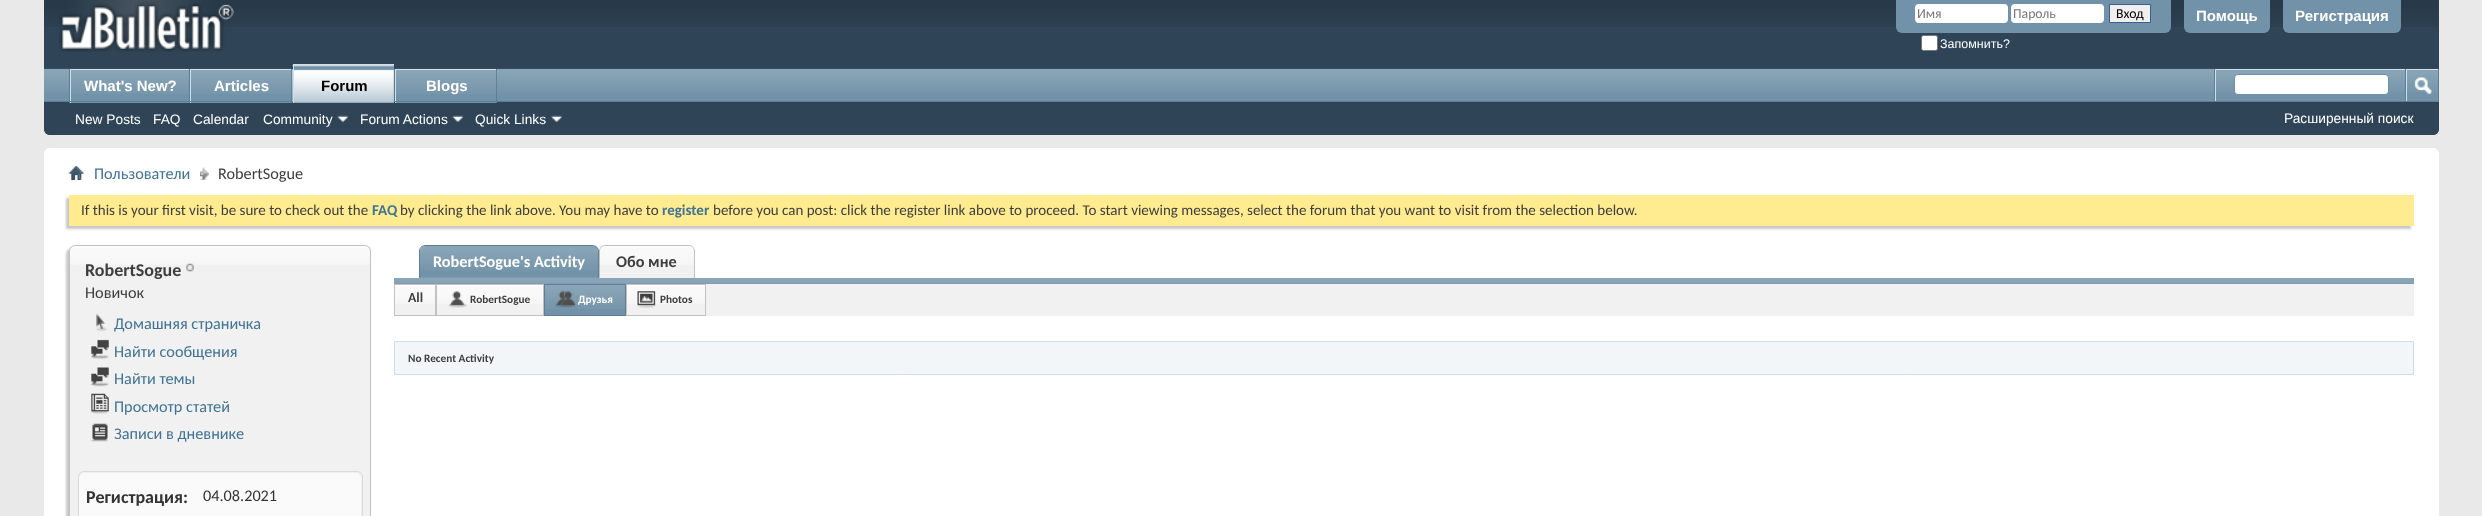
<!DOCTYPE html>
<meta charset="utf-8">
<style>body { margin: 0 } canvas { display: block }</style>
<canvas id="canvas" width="2482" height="516"></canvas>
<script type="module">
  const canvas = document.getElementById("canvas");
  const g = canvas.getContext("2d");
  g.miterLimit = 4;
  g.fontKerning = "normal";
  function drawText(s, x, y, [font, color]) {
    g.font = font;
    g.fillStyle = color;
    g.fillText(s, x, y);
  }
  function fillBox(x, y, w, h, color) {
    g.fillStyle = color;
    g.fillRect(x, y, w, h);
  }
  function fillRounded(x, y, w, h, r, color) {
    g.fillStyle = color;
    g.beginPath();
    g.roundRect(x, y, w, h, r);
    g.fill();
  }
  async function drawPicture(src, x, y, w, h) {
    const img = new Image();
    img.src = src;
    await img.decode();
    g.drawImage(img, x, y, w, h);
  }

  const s1 = ["13.75px Carlito", "#777777"];
  const s2 = ["13.75px Carlito", "#000000"];
  const s3 = ["12.5px Liberation Sans", "#FFFFFF"];
  const s4 = ["bold 15px Liberation Sans", "#FFFFFF"];
  const s5 = ["bold 15px Liberation Sans", "#000000"];
  const s6 = ["13.75px Liberation Sans", "#FFFFFF"];
  const s7 = ["16.25px Carlito", "#417394"];
  const s8 = ["16.25px Carlito", "#3E3E3E"];
  const s9 = ["15px Carlito", "#3E3E3E"];
  const s10 = ["bold 15px Carlito", "#417394"];
  const s11 = ["bold 18px Carlito", "#3E3E3E"];
  const s12 = ["bold 18px Carlito", "#333333"];
  const s13 = ["16.25px Carlito", "#333333"];
  const s14 = ["bold 16.25px Carlito", "#FFFFFF"];
  const s15 = ["bold 16.25px Carlito", "#3E3E3E"];
  const s16 = ["bold 13.75px Carlito", "#3E3E3E"];
  const s17 = ["bold 11.25px Carlito", "#3E3E3E"];
  const s18 = ["bold 11.25px Carlito", "#FFFFFF"];

  fillBox(0, 0, 2482, 516, "#E9E9E9");
  g.fillStyle = "#2F4456";
  g.beginPath();
  g.roundRect(44, 0, 2395, 135, [0, 0, 6, 6]);
  g.fill();
  await drawPicture("pic1.png", 44, 0, 2395, 27);
  await drawPicture("pic2.png", 59, 0, 175, 52);
  g.fillStyle = "#7192A8";
  g.beginPath();
  g.roundRect(1896, 0, 275, 33, [0, 0, 6, 6]);
  g.fill();
  fillRounded(1915, 4, 93, 19, 4, "#FFFFFF");
  drawText("Имя", 1917, 18, s1);
  fillRounded(2011, 4, 93, 19, 4, "#FFFFFF");
  drawText("Пароль", 2013, 18, s1);
  g.fillStyle = "#EFEFEF";
  g.beginPath();
  g.rect(2109.5, 4.5, 41, 18);
  g.fill();
  g.strokeStyle = "#415D8D";
  g.stroke();
  drawText("Вход", 2116, 18, s2);
  g.fillStyle = "#FFFFFF";
  g.beginPath();
  g.roundRect(1921.5, 35.5, 16, 15, 2);
  g.fill();
  g.strokeStyle = "#767676";
  g.stroke();
  drawText("Запомнить?", 1940, 48, s3);
  g.fillStyle = "#7192A8";
  g.beginPath();
  g.roundRect(2184, 0, 86, 33, [0, 0, 6, 6]);
  g.fill();
  drawText("Помощь", 2196, 21, s4);
  g.fillStyle = "#7192A8";
  g.beginPath();
  g.roundRect(2283, 0, 118, 33, [0, 0, 6, 6]);
  g.fill();
  drawText("Регистрация", 2295, 21, s4);
  g.fillStyle = "#2F4456";
  g.beginPath();
  g.roundRect(44, 69, 2395, 66, [0, 0, 6, 6]);
  g.fill();
  fillBox(44, 69, 2394, 32, "#7192A8");
  await drawPicture("pic3.png", 44, 68, 2395, 25);
  fillBox(189, 69, 1, 34, "#5A7F97");
  fillBox(69, 69, 1, 34, "#5A7F97");
  fillBox(71, 70, 118, 33, "#7192A8");
  await drawPicture("pic4.png", 71, 70, 118, 24);
  fillBox(70, 69, 119, 1, "#CEDFEB");
  fillBox(70, 69, 1, 34, "#CEDFEB");
  drawText("What's New?", 84, 91, s4);
  fillBox(291, 69, 1, 34, "#5A7F97");
  fillBox(191, 70, 100, 33, "#7192A8");
  await drawPicture("pic5.png", 191, 70, 101, 24);
  fillBox(190, 69, 101, 1, "#CEDFEB");
  fillBox(190, 69, 1, 34, "#CEDFEB");
  drawText("Articles", 214, 91, s4);
  fillBox(394, 69, 1, 32, "#5A7F97");
  fillBox(496, 69, 1, 34, "#5A7F97");
  fillBox(396, 70, 100, 33, "#7192A8");
  fillBox(395, 69, 101, 1, "#CEDFEB");
  fillBox(395, 69, 1, 34, "#CEDFEB");
  fillBox(44, 101, 2395, 1, "#5A7F97");
  fillBox(294, 65, 100, 38, "#7192A8");
  await drawPicture("pic6.png", 292, 65, 102, 38);
  fillBox(293, 64, 101, 1, "#CEDFEB");
  fillBox(293, 64, 1, 39, "#CEDFEB");
  drawText("Forum", 321, 91, s5);
  await drawPicture("pic5.png", 396, 70, 101, 24);
  drawText("Blogs", 426, 91, s4);
  drawText("New Posts", 75, 124, s6);
  drawText("FAQ", 153, 124, s6);
  drawText("Calendar", 193, 124, s6);
  drawText("Community", 263, 124, s6);
  await drawPicture("pic7.png", 337, 115, 12, 7);
  drawText("Forum Actions", 360, 124, s6);
  await drawPicture("pic7.png", 452, 115, 12, 7);
  drawText("Quick Links", 475, 124, s6);
  await drawPicture("pic8.png", 551, 115, 12, 7);
  fillBox(2214, 69, 1, 32, "#5A7F97");
  fillBox(2215, 69, 190, 1, "#CEDFEB");
  fillBox(2215, 69, 1, 32, "#CEDFEB");
  g.fillStyle = "#FFFFFF";
  g.beginPath();
  g.roundRect(2234.5, 74.5, 154, 20, 3.5);
  g.fill();
  g.strokeStyle = "#6B91AB";
  g.stroke();
  fillBox(2438, 69, 1, 32, "#5A7F97");
  fillBox(2405, 69, 1, 32, "#5A7F97");
  fillBox(2406, 69, 32, 1, "#CEDFEB");
  fillBox(2406, 69, 1, 32, "#CEDFEB");
  await drawPicture("pic9.png", 2414, 77, 18, 18);
  drawText("Расширенный поиск", 2284, 123, s6);
  fillRounded(44, 148, 2395, 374, 6, "#FFFFFF");
  await drawPicture("pic10.png", 68, 166, 16, 14);
  await drawPicture("pic11.png", 200, 167, 9, 13);
  drawText("Пользователи", 94, 179, s7);
  drawText("RobertSogue", 218, 179, s8);
  g.fillStyle = "#C8C8C8";
  g.filter = "blur(1px)";
  g.beginPath();
  g.rect(66, 198, 2345, 31);
  g.fill();
  g.filter = "none";
  fillBox(69, 195, 2345, 31, "#FFEB90");
  drawText("If this is your first visit, be sure to check out the", 81, 215, s9);
  drawText("FAQ", 372, 215, s10);
  drawText("by clicking the link above. You may have to", 400, 215, s9);
  drawText("register", 662, 215, s10);
  drawText("before you can post: click the register link above to proceed. To start viewing messages, select the forum that you want to visit from the selection below.", 713, 215, s9);
  g.fillStyle = "#C8C8C8";
  g.filter = "blur(1px)";
  g.beginPath();
  g.roundRect(66, 248, 303, 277, 6);
  g.fill();
  g.filter = "none";
  fillRounded(69, 245, 302, 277, 6, "#F1F1F1");
  await drawPicture("pic12.png", 69, 246, 302, 19);
  g.beginPath();
  g.roundRect(69.5, 245.5, 301, 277, 5.5);
  g.strokeStyle = "#C1C1C1";
  g.stroke();
  drawText("RobertSogue", 85, 276, s11);
  await drawPicture("pic13.png", 186, 263, 8, 9);
  drawText("Новичок", 85, 298, s8);
  await drawPicture("pic14.png", 96, 313, 11, 19);
  drawText("Домашняя страничка", 114, 329, s7);
  await drawPicture("pic15.png", 91, 339, 18, 20);
  drawText("Найти сообщения", 114, 357, s7);
  await drawPicture("pic16.png", 90, 367, 19, 20);
  drawText("Найти темы", 114, 384, s7);
  await drawPicture("pic17.png", 91, 393, 18, 21);
  drawText("Просмотр статей", 114, 412, s7);
  await drawPicture("pic18.png", 90, 423, 18, 19);
  drawText("Записи в дневнике", 114, 439, s7);
  g.beginPath();
  g.roundRect(78.5, 471.5, 284, 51, 5.5);
  g.strokeStyle = "#DADADA";
  g.stroke();
  fillRounded(79, 473, 282, 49, 6, "#FAFAFA");
  fillBox(357, 473, 2, 1, "#FAFAFA");
  drawText("Регистрация:", 86, 503, s12);
  drawText("04.08.2021", 203, 501, s13);
  g.fillStyle = "#7192A8";
  g.beginPath();
  g.roundRect(420, 246, 178, 32, [5, 5, 0, 0]);
  g.fill();
  await drawPicture("pic19.png", 420, 246, 178, 25);
  g.fillStyle = "#5A7F97";
  g.beginPath();
  g.moveTo(425, 245);
  g.lineTo(592, 245);
  g.bezierCurveTo(596, 245, 599, 248, 599, 251);
  g.lineTo(599, 278);
  g.lineTo(419, 278);
  g.lineTo(419, 251);
  g.bezierCurveTo(419, 248, 422, 245, 425, 245);
  g.closePath();
  g.moveTo(425, 246);
  g.lineTo(592, 246);
  g.bezierCurveTo(595, 246, 598, 248, 598, 251);
  g.lineTo(598, 278);
  g.lineTo(420, 278);
  g.lineTo(420, 251);
  g.bezierCurveTo(420, 248, 422, 246, 425, 246);
  g.closePath();
  g.fill("evenodd");
  drawText("RobertSogue's Activity", 433, 267, s14);
  g.fillStyle = "#F1F1F1";
  g.beginPath();
  g.roundRect(600, 246, 94, 32, [5, 5, 0, 0]);
  g.fill();
  await drawPicture("pic20.png", 598, 246, 96, 19);
  g.fillStyle = "#C1C1C1";
  g.beginPath();
  g.moveTo(605, 245);
  g.lineTo(689, 245);
  g.bezierCurveTo(692, 245, 695, 248, 695, 251);
  g.lineTo(695, 278);
  g.lineTo(599, 278);
  g.lineTo(599, 251);
  g.bezierCurveTo(599, 248, 602, 245, 605, 245);
  g.closePath();
  g.moveTo(605, 246);
  g.lineTo(689, 246);
  g.bezierCurveTo(692, 246, 694, 248, 694, 251);
  g.lineTo(694, 278);
  g.lineTo(600, 278);
  g.lineTo(600, 251);
  g.bezierCurveTo(600, 248, 602, 246, 605, 246);
  g.closePath();
  g.fill("evenodd");
  drawText("Обо мне", 616, 267, s15);
  fillBox(394, 278, 2020, 6, "#7192A8");
  await drawPicture("pic21.png", 394, 277, 2020, 7);
  fillBox(395, 284, 2019, 32, "#F1F1F1");
  await drawPicture("pic22.png", 395, 285, 40, 19);
  g.strokeStyle = "#C1C1C1";
  g.strokeRect(394.5, 284.5, 41, 31);
  drawText("All", 408, 302, s16);
  await drawPicture("pic23.png", 437, 285, 106, 19);
  g.strokeRect(436.5, 284.5, 107, 31);
  await drawPicture("pic24.png", 448, 291, 19, 17);
  drawText("RobertSogue", 470, 303, s17);
  fillBox(545, 285, 80, 30, "#7192A8");
  await drawPicture("pic25.png", 545, 285, 80, 24);
  g.strokeStyle = "#5A7F97";
  g.strokeRect(544.5, 284.5, 81, 31);
  await drawPicture("pic26.png", 555, 291, 20, 17);
  drawText("Друзья", 578, 303, s18);
  await drawPicture("pic27.png", 627, 285, 78, 19);
  g.strokeStyle = "#C1C1C1";
  g.strokeRect(626.5, 284.5, 79, 31);
  await drawPicture("pic28.png", 637, 291, 19, 17);
  drawText("Photos", 660, 303, s17);
  g.fillStyle = "#F2F6F8";
  g.beginPath();
  g.rect(394.5, 341.5, 2019, 33);
  g.fill();
  g.strokeStyle = "#CEDFEB";
  g.stroke();
  drawText("No Recent Activity", 408, 362, s17);
</script>
